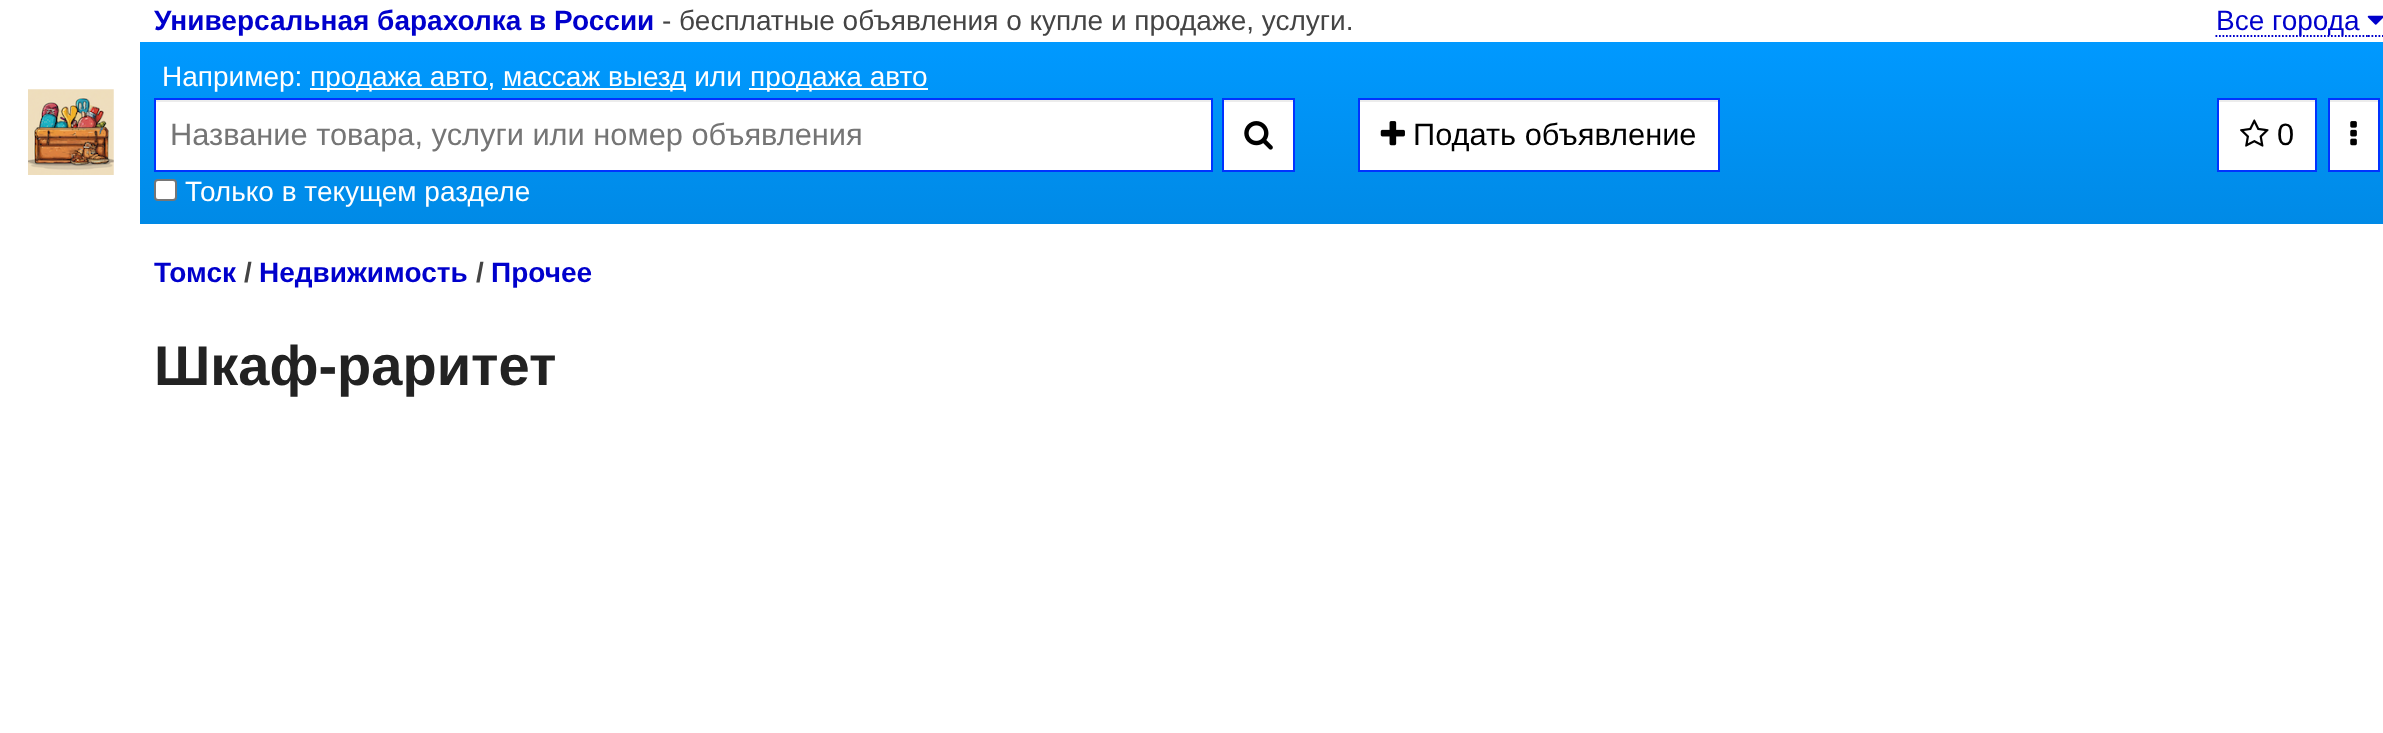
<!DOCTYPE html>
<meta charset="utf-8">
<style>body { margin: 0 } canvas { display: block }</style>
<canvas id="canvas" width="2383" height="733"></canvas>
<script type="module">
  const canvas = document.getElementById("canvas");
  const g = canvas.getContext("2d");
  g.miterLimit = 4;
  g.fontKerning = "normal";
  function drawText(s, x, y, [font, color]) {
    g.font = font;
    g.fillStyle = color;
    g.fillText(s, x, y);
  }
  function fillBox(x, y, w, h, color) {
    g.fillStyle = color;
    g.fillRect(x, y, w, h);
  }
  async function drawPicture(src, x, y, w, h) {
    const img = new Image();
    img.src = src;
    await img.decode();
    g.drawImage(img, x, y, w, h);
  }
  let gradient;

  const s1 = ["bold 28px Liberation Sans", "#0000CC"];
  const s2 = ["28px Liberation Sans", "#444444"];
  const s3 = ["28px Liberation Sans", "#0000CC"];
  const s4 = ["28px Liberation Sans", "#FFFFFF"];
  const s5 = ["30.8px Liberation Sans", "#757575"];
  const s6 = ["30.8px Liberation Sans", "#000000"];
  const s7 = ["bold 28px Liberation Sans", "#444444"];
  const s8 = ["bold 56px Liberation Sans", "#222222"];

  fillBox(0, 0, 2383, 733, "#FFFFFF");
  drawText("Универсальная барахолка в России", 154, 30, s1);
  drawText("- бесплатные объявления о купле и продаже, услуги.", 662, 30, s2);
  g.beginPath();
  g.moveTo(2215.5, 36);
  g.lineTo(2368, 36);
  g.strokeStyle = "#0000CC";
  g.lineWidth = 1.8;
  g.setLineDash([1.75, 1.75]);
  g.stroke();
  g.beginPath();
  g.moveTo(2368, 36);
  g.lineTo(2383.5, 36);
  g.stroke();
  drawText("Все города", 2216, 30, s3);
  await drawPicture("pic1.png", 2367, 15, 16, 10);
  gradient = g.createLinearGradient(0, 42, 0, 224);
  gradient.addColorStop(0, "#0099FF");
  gradient.addColorStop(1, "#008AE6");
  g.fillStyle = gradient;
  g.fillRect(140, 42, 2243, 182);
  await drawPicture("pic2.png", 28, 89, 86, 86);
  drawText("Например:", 162, 86, s4);
  fillBox(310, 88, 178, 2, "#FFFFFF");
  drawText("продажа авто,", 310, 86, s4);
  fillBox(502, 88, 184, 2, "#FFFFFF");
  drawText("массаж выезд или", 503, 86, s4);
  fillBox(749, 88, 179, 2, "#FFFFFF");
  drawText("продажа авто", 750, 86, s4);
  fillBox(156, 102, 1055, 68, "#FFFFFF");
  fillBox(156, 100, 1055, 2, "#ECECEC");
  g.strokeStyle = "#0033FF";
  g.lineWidth = 2;
  g.setLineDash([]);
  g.strokeRect(155, 99, 1057, 72);
  drawText("Название товара, услуги или номер объявления", 170, 145, s5);
  fillBox(1224, 102, 69, 68, "#FFFFFF");
  fillBox(1223, 100, 70, 2, "#ECECEC");
  g.strokeRect(1223, 99, 71, 72);
  await drawPicture("pic3.png", 1244, 121, 29, 29);
  g.fillStyle = "#FFFFFF";
  g.beginPath();
  g.roundRect(155, 180, 21, 20, 3);
  g.fill();
  g.strokeStyle = "#767676";
  g.stroke();
  drawText("Только в текущем разделе", 185, 201, s4);
  fillBox(1360, 102, 358, 68, "#FFFFFF");
  fillBox(1360, 100, 359, 2, "#ECECEC");
  g.strokeStyle = "#0033FF";
  g.strokeRect(1359, 99, 360, 72);
  await drawPicture("pic4.png", 1380, 121, 25, 25);
  drawText("Подать объявление", 1413, 145, s6);
  fillBox(2219, 102, 96, 68, "#FFFFFF");
  fillBox(2219, 100, 96, 2, "#ECECEC");
  g.strokeRect(2218, 99, 98, 72);
  await drawPicture("pic5.png", 2240, 119, 29, 28);
  drawText("0", 2277, 145, s6);
  fillBox(2330, 102, 48, 68, "#FFFFFF");
  fillBox(2329, 100, 49, 2, "#ECECEC");
  g.strokeRect(2329, 99, 50, 72);
  await drawPicture("pic6.png", 2350, 121, 7, 25);
  drawText("Томск", 154, 282, s1);
  drawText("/", 244, 282, s7);
  drawText("Недвижимость", 259, 282, s1);
  drawText("/", 476, 282, s7);
  drawText("Прочее", 491, 282, s1);
  drawText("Шкаф-раритет", 154, 385, s8);
</script>
